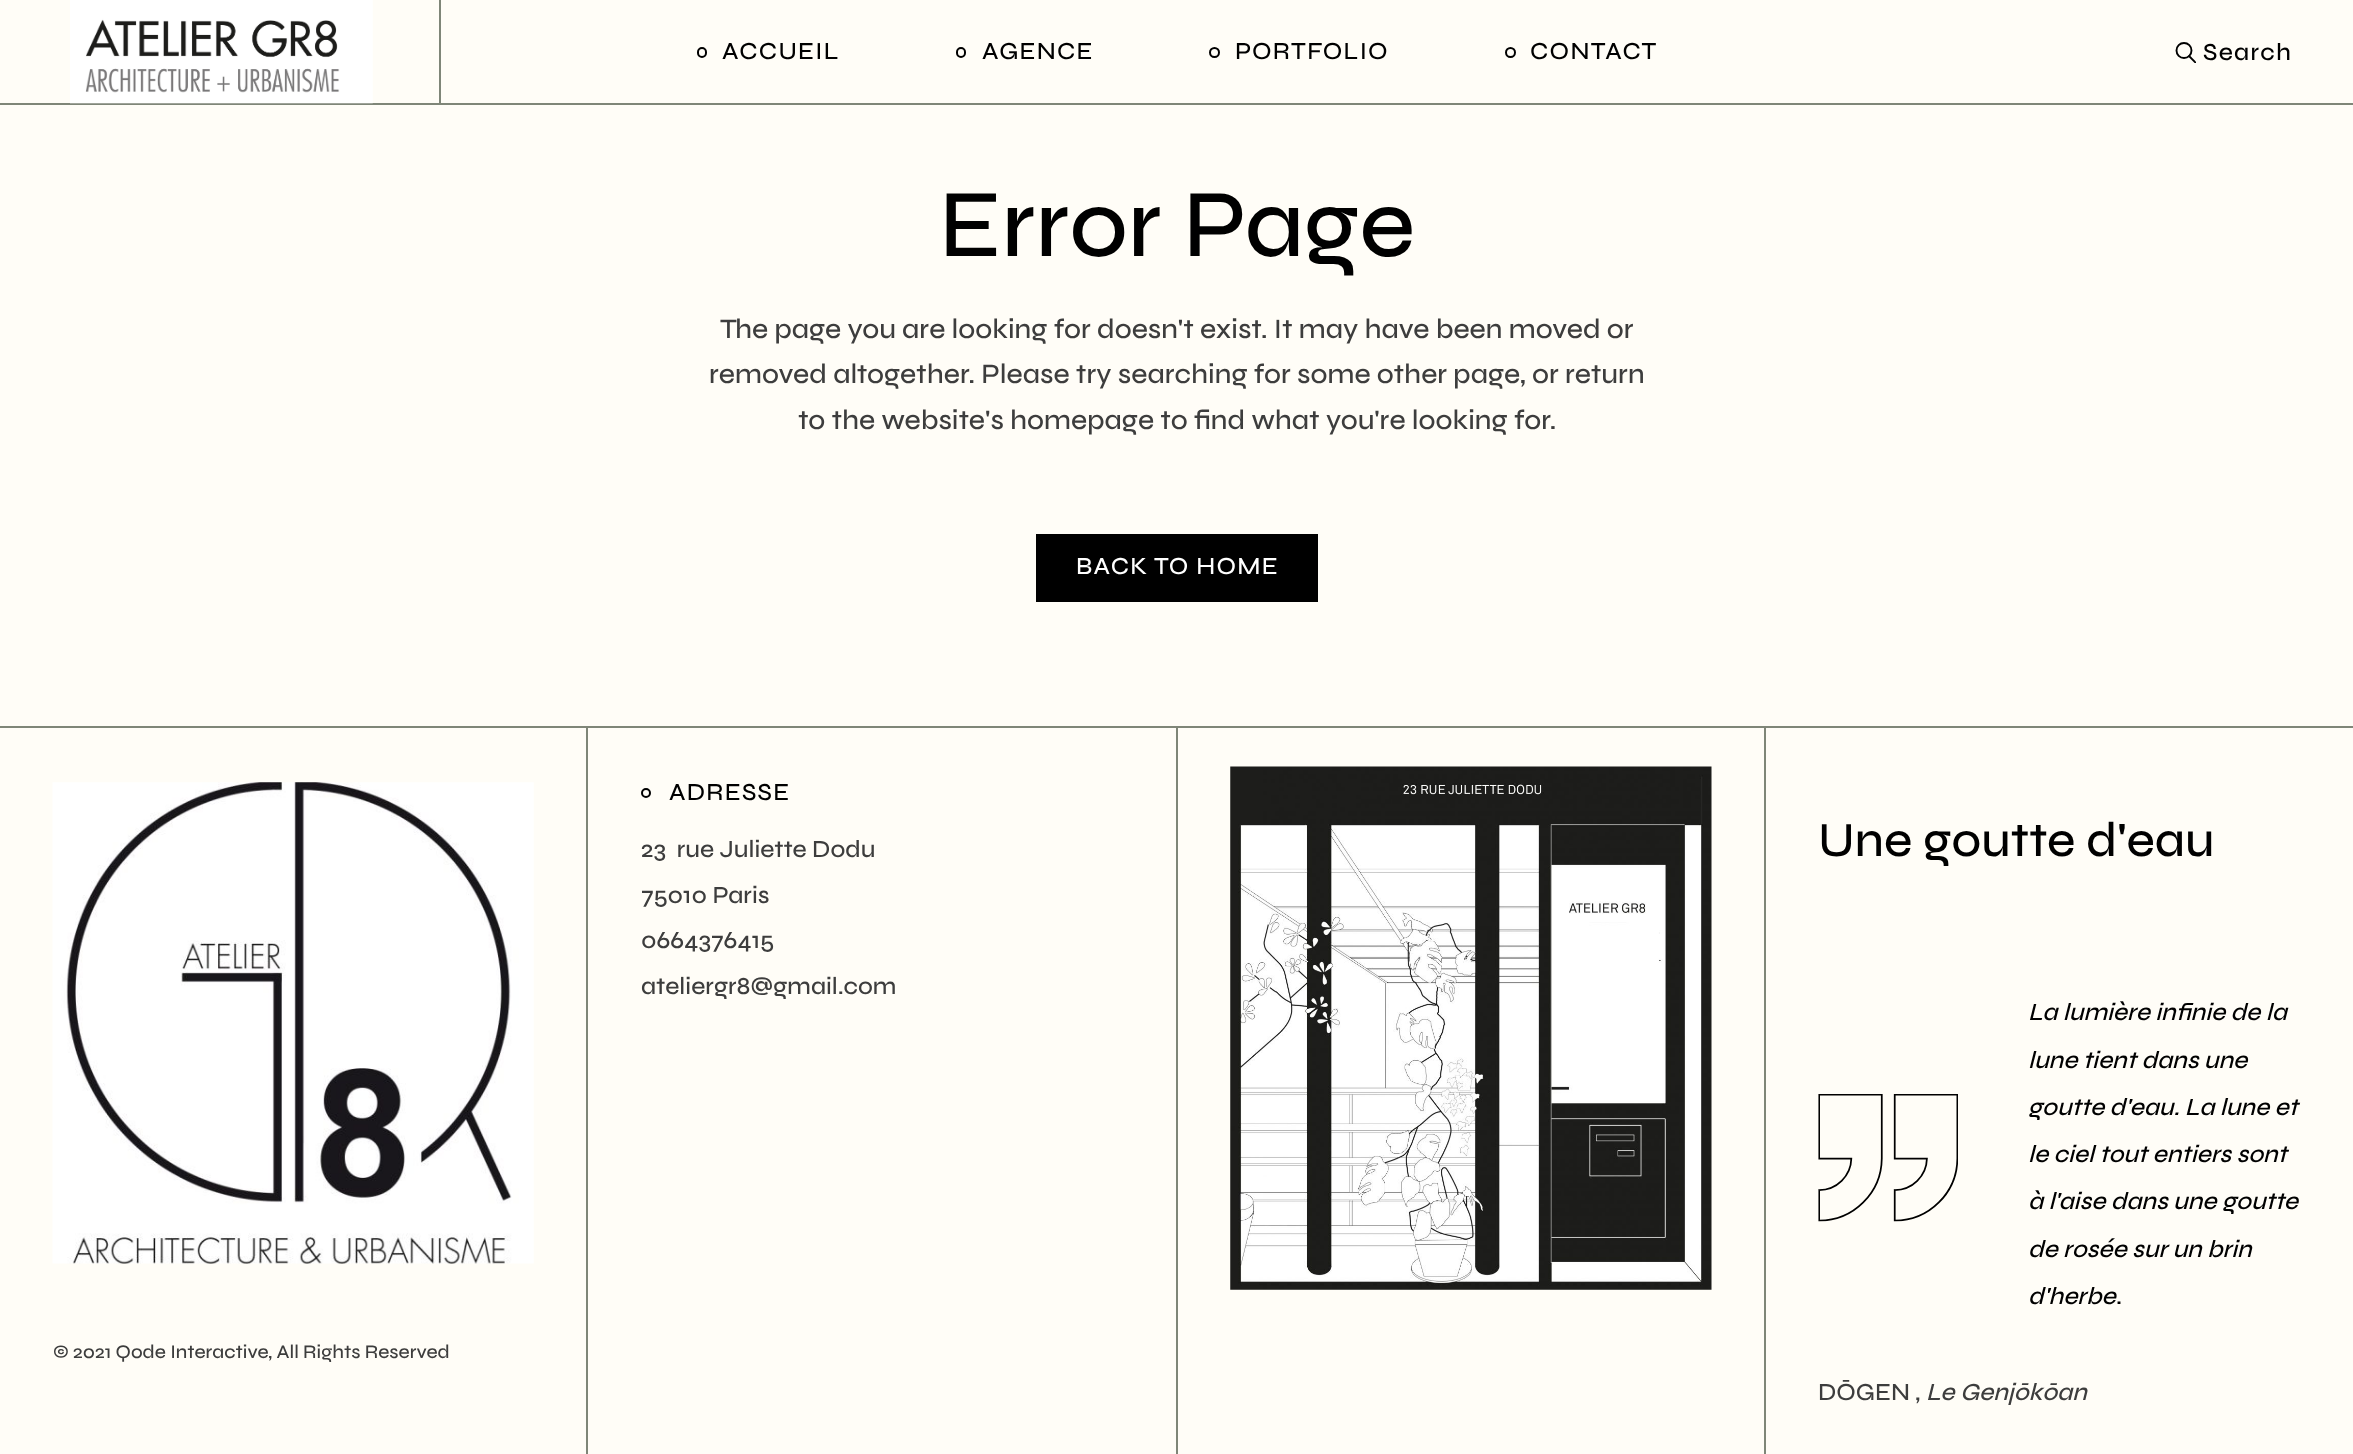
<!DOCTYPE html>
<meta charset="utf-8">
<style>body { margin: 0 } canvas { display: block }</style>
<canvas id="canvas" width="2353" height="1454"></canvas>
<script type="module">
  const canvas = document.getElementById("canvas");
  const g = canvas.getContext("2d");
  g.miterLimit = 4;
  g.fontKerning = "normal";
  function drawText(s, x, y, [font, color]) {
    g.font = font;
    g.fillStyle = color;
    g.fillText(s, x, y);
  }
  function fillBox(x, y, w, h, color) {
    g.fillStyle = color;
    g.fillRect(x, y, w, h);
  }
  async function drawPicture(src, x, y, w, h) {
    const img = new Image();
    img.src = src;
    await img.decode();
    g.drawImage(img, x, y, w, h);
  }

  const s1 = ["500 24.5px Syne", "#000000"];
  const s2 = ["500 96.25px Syne", "#000000"];
  const s3 = ["500 28px Syne", "#3D3D3D"];
  const s4 = ["500 24.5px Syne", "#FFFFFF"];
  const s5 = ["500 19.25px Syne", "#3D3D3D"];
  const s6 = ["500 24.5px Syne", "#3D3D3D"];
  const s7 = ["500 49px Syne", "#000000"];
  const s8 = ["italic 500 24.5px Syne", "#000000"];
  const s9 = ["italic 500 24.5px Syne", "#3D3D3D"];

  fillBox(0, 0, 2353, 1454, "#FFFDF7");
  fillBox(0, 103, 2353, 2, "#7F8678");
  fillBox(439, 0, 2, 103, "#7F8678");
  await drawPicture("pic1.png", 70, 0, 303, 104);
  g.beginPath();
  g.roundRect(698, 48, 8, 9, 4);
  g.strokeStyle = "#000000";
  g.lineWidth = 2;
  g.stroke();
  g.letterSpacing = "1.25px";
  drawText("ACCUEIL", 722, 59, s1);
  g.beginPath();
  g.roundRect(957, 48, 8, 9, 4);
  g.stroke();
  drawText("AGENCE", 982, 59, s1);
  g.beginPath();
  g.arc(1214.5, 52.5, 4.5, 0, Math.PI * 2);
  g.stroke();
  drawText("PORTFOLIO", 1235, 59, s1);
  g.beginPath();
  g.arc(1510.5, 52.5, 4.5, 0, Math.PI * 2);
  g.stroke();
  drawText("CONTACT", 1530, 59, s1);
  g.beginPath();
  g.arc(2184, 50.5, 7.5, 0, Math.PI * 2);
  g.lineWidth = 1.9;
  g.stroke();
  g.save();
  g.beginPath();
  g.rect(2174, 40, 22, 23);
  g.clip();
  g.beginPath();
  g.moveTo(2188.5, 55.5);
  g.lineTo(2196, 63);
  g.stroke();
  g.restore();
  drawText("Search", 2203, 60, s1);
  g.letterSpacing = "0px";
  drawText("Error Page", 939, 256, s2);
  drawText("The page you are looking for doesn't exist. It may have been moved or", 720, 338, s3);
  drawText("removed altogether. Please try searching for some other page, or return", 709, 383, s3);
  drawText("to the website's homepage to find what you're looking for.", 798, 429, s3);
  fillBox(1036, 534, 282, 68, "#000000");
  g.letterSpacing = "1.25px";
  drawText("BACK TO HOME", 1076, 574, s4);
  fillBox(0, 726, 2353, 2, "#7F8678");
  fillBox(586, 728, 2, 726, "#7F8678");
  await drawPicture("pic2.png", 52, 782, 482, 482);
  g.letterSpacing = "0px";
  drawText("© 2021 Qode Interactive, All Rights Reserved", 53, 1358, s5);
  fillBox(1176, 728, 2, 726, "#7F8678");
  g.beginPath();
  g.arc(646, 793, 4, 0, Math.PI * 2);
  g.lineWidth = 2;
  g.stroke();
  g.letterSpacing = "1.25px";
  drawText("ADRESSE", 669, 800, s1);
  g.letterSpacing = "0px";
  drawText("23  rue Juliette Dodu", 641, 857, s6);
  drawText("75010 Paris", 641, 903, s6);
  drawText("0664376415", 641, 948, s6);
  drawText("ateliergr8@gmail.com", 641, 994, s6);
  fillBox(1764, 728, 2, 726, "#7F8678");
  await drawPicture("pic3.png", 1230, 766, 482, 524);
  drawText("Une goutte d'eau", 1818, 856, s7);
  await drawPicture("pic4.png", 1818, 1094, 140, 128);
  drawText("La lumière infinie de la", 2028, 1020, s8);
  drawText("lune tient dans une", 2028, 1068, s8);
  drawText("goutte d'eau. La lune et", 2028, 1115, s8);
  drawText("le ciel tout entiers sont", 2028, 1162, s8);
  drawText("à l'aise dans une goutte", 2028, 1209, s8);
  drawText("de rosée sur un brin", 2028, 1257, s8);
  drawText("d'herbe", 2028, 1304, s8);
  drawText(".", 2116, 1304, s1);
  drawText("DŌGEN ,", 1818, 1400, s6);
  drawText("Le Genjōkōan", 1926, 1400, s9);
</script>
